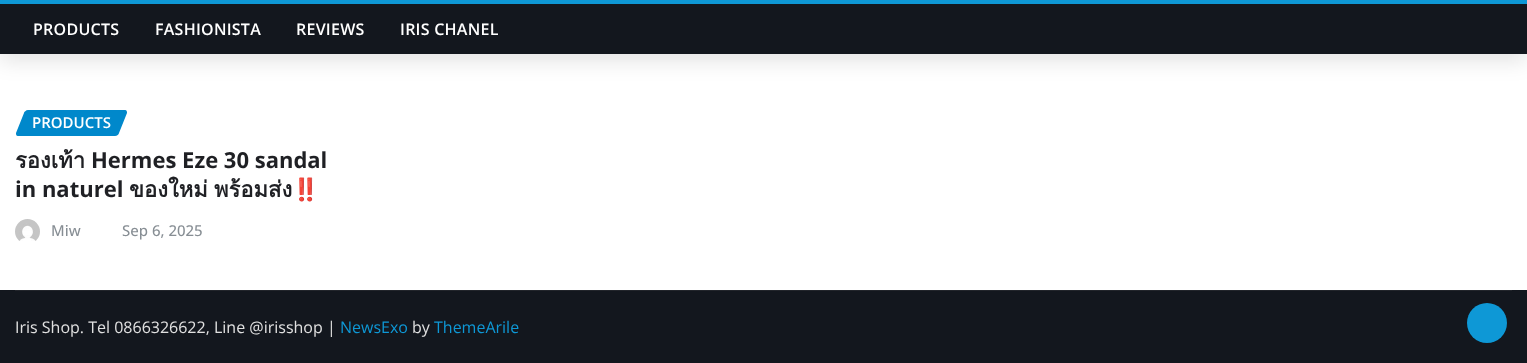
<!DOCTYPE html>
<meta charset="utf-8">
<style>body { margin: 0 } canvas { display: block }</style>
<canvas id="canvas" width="1527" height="363"></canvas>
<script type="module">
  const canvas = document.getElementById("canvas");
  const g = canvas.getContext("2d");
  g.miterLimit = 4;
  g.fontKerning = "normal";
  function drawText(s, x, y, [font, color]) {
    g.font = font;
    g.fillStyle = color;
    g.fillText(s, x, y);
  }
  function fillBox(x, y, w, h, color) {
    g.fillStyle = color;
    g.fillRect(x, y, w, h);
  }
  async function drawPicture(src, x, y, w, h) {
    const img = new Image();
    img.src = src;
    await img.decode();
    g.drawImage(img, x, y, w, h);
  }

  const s1 = ["600 16px Open Sans", "#FFFFFF"];
  const s2 = ["600 15px Open Sans", "#FFFFFF"];
  const s3 = ["bold 22px Loma", "#1F2024"];
  const s4 = ["bold 22px Open Sans", "#1F2024"];
  const s5 = ["bold 22px Noto Color Emoji", "#1F2024"];
  const s6 = ["500 15px Open Sans", "#878E94"];
  const s7 = ["16px Open Sans", "#E0E0E0"];
  const s8 = ["16px Open Sans", "#0E98D6"];

  fillBox(0, 0, 1527, 363, "#FFFFFF");
  g.fillStyle = "rgba(0, 0, 0, 0.1)";
  g.filter = "blur(10px)";
  g.beginPath();
  g.rect(0, 8, 1527, 54);
  g.fill();
  g.filter = "none";
  fillBox(0, 4, 1527, 50, "#13171E");
  fillBox(0, 0, 1527, 4, "#0E98D6");
  g.letterSpacing = "0.25px";
  drawText("PRODUCTS", 33, 35, s1);
  drawText("FASHIONISTA", 155, 35, s1);
  drawText("REVIEWS", 296, 35, s1);
  drawText("IRIS CHANEL", 400, 35, s1);
  g.fillStyle = "#0088CB";
  g.beginPath();
  g.moveTo(28, 110);
  g.lineTo(125, 110);
  g.bezierCurveTo(127, 110, 127, 112, 127, 113);
  g.lineTo(119, 133);
  g.bezierCurveTo(119, 134, 117, 136, 115, 136);
  g.lineTo(18, 136);
  g.bezierCurveTo(16, 136, 16, 134, 16, 133);
  g.lineTo(24, 113);
  g.bezierCurveTo(24, 112, 26, 110, 28, 110);
  g.closePath();
  g.fill();
  g.letterSpacing = "0px";
  drawText("PRODUCTS", 32, 128, s2);
  drawText("รองเท้า", 15, 168, s3);
  drawText("Hermes Eze 30 sandal", 91, 168, s4);
  drawText("in naturel", 15, 197, s4);
  drawText("ของใหม่", 129, 197, s3);
  drawText("พร้อมส่ง", 214, 197, s3);
  drawText("‼️", 292, 197, s5);
  await drawPicture("pic1.png", 15, 219, 25, 22);
  drawText("Miw", 51, 236, s6);
  drawText("Sep 6, 2025", 122, 236, s6);
  fillBox(0, 290, 1527, 73, "#13171E");
  fillBox(15, 290, 1497, 1, "#22252B");
  drawText("Iris Shop. Tel 0866326622, Line @irisshop |", 15, 333, s7);
  drawText("NewsExo", 340, 333, s8);
  drawText("by", 412, 333, s7);
  drawText("ThemeArile", 434, 333, s8);
  g.beginPath();
  g.arc(1487, 323, 20, 0, Math.PI * 2);
  g.fill();
</script>
